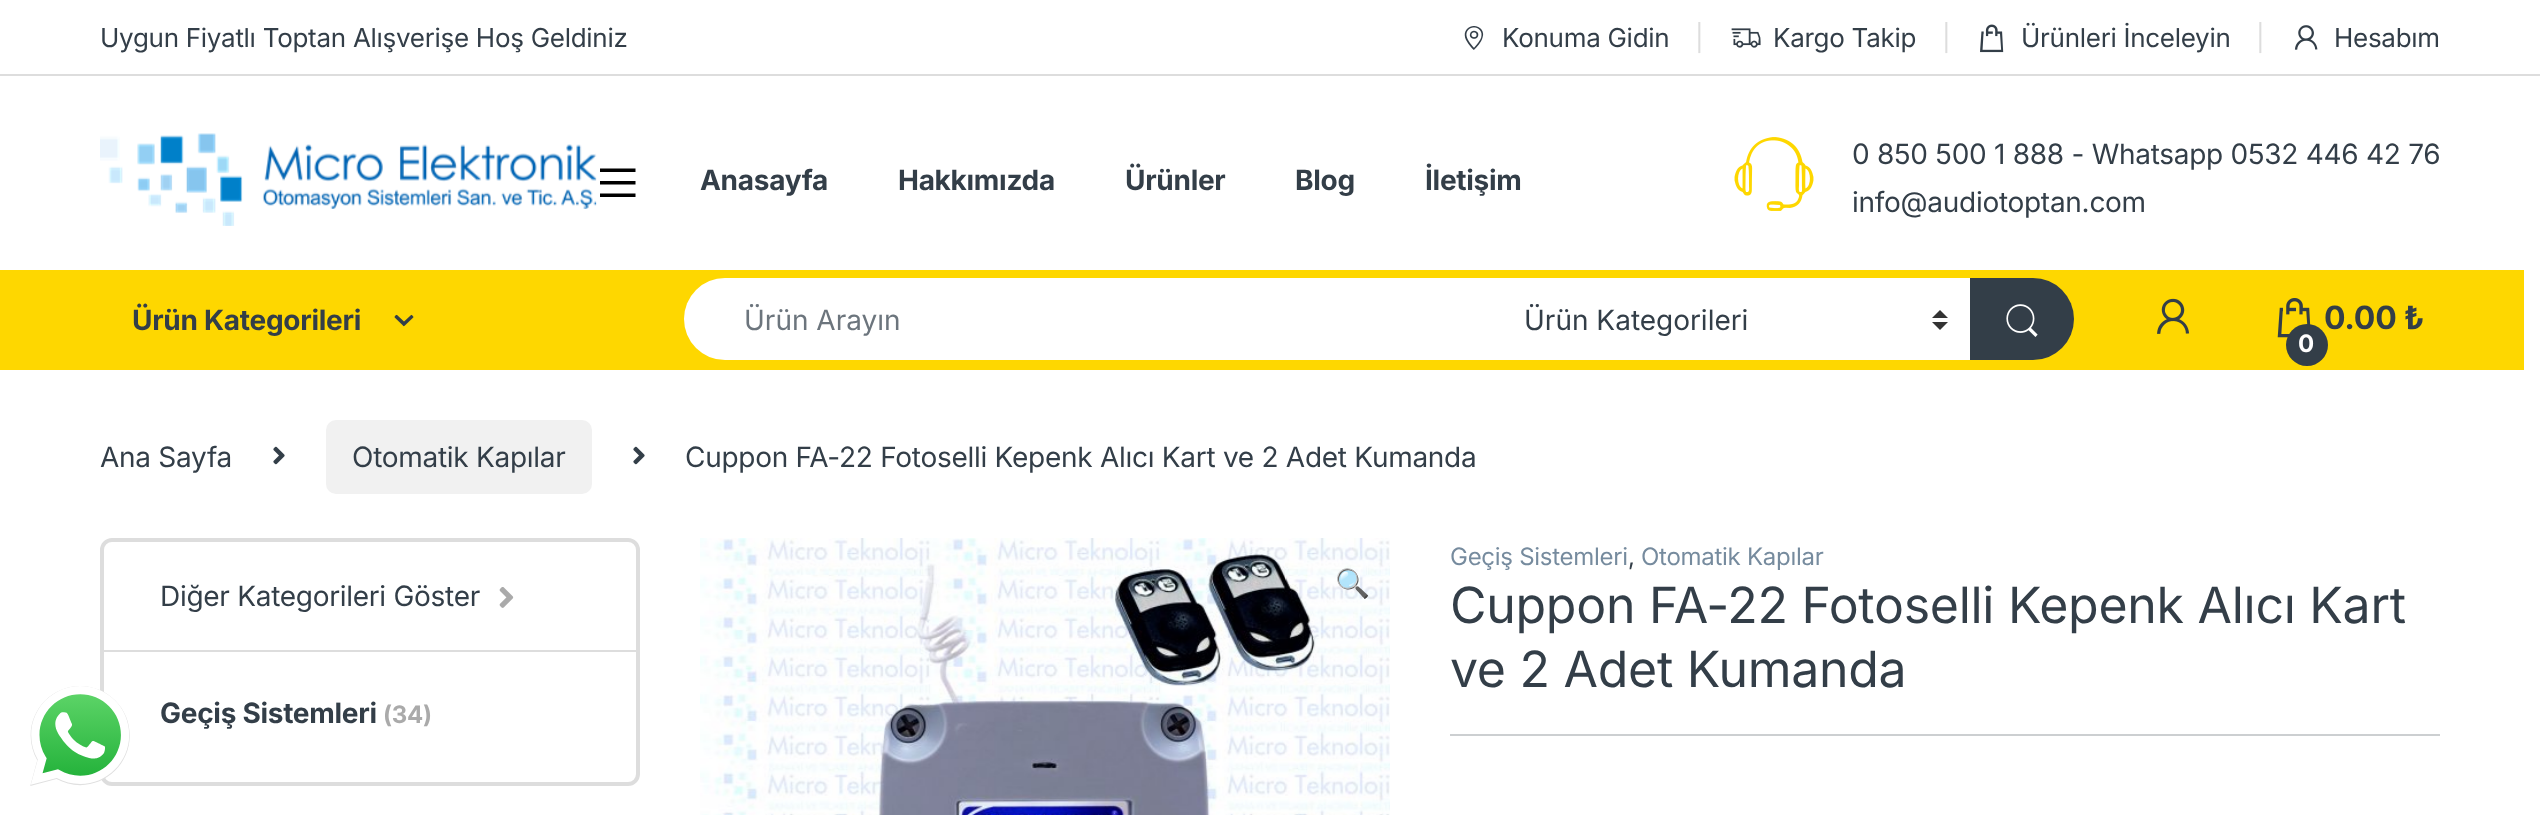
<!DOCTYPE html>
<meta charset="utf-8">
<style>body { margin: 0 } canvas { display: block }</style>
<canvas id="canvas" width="2540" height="815"></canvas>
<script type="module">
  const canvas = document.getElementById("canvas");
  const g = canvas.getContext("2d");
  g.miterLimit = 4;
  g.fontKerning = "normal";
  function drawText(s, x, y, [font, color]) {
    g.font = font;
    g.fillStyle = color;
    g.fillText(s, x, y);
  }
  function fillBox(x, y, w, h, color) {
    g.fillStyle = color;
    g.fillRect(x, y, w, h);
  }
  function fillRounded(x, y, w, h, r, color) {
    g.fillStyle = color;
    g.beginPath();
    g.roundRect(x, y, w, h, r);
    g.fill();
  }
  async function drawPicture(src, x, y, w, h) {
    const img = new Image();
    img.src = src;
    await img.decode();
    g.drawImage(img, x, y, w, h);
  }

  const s1 = ["26px Inter", "#333E48"];
  const s2 = ["26px Inter", "#DDDDDD"];
  const s3 = ["bold 28px Inter", "#333E48"];
  const s4 = ["28px Inter", "#333E48"];
  const s5 = ["28px Inter", "#6C757D"];
  const s6 = ["bold 32px Inter", "#333E48"];
  const s7 = ["bold 24px Inter", "#FFFFFF"];
  const s8 = ["bold 24px Inter", "#AAAAAA"];
  const s9 = ["28px Noto Color Emoji", "#333E48"];
  const s10 = ["24px Inter", "#768B9E"];
  const s11 = ["24px Inter", "#333E48"];
  const s12 = ["50px Inter", "#333E48"];

  fillBox(0, 0, 2540, 815, "#FFFFFF");
  g.beginPath();
  g.roundRect(102, 540, 536, 244, 10);
  g.strokeStyle = "#DDDDDD";
  g.lineWidth = 4;
  g.stroke();
  await drawPicture("pic1.png", 30, 686, 100, 100);
  fillBox(0, 74, 2540, 2, "#DDDDDD");
  g.letterSpacing = "-0.28px";
  drawText("Uygun Fiyatlı Toptan Alışverişe Hoş Geldiniz", 100, 47, s1);
  await drawPicture("pic2.png", 1464, 26, 20, 24);
  drawText("Konuma Gidin", 1502, 47, s1);
  drawText("|", 1695, 47, s2);
  await drawPicture("pic3.png", 1731, 28, 30, 20);
  drawText("Kargo Takip", 1773, 47, s1);
  drawText("|", 1942, 47, s2);
  await drawPicture("pic4.png", 1980, 24, 24, 29);
  drawText("Ürünleri İnceleyin", 2021, 47, s1);
  drawText("|", 2256, 47, s2);
  await drawPicture("pic5.png", 2294, 25, 24, 25);
  drawText("Hesabım", 2334, 47, s1);
  await drawPicture("pic6.png", 100, 133, 497, 93);
  g.fillStyle = "#000000";
  g.beginPath();
  g.moveTo(600, 197);
  g.lineTo(600, 193.5);
  g.lineTo(635.5, 193.5);
  g.lineTo(635.5, 197);
  g.closePath();
  g.moveTo(600, 181);
  g.lineTo(635.5, 181);
  g.lineTo(635.5, 184.5);
  g.lineTo(600, 184.5);
  g.closePath();
  g.moveTo(600, 168.5);
  g.lineTo(635.5, 168.5);
  g.lineTo(635.5, 172);
  g.lineTo(600, 172);
  g.closePath();
  g.fill();
  drawText("Anasayfa", 700, 190, s3);
  drawText("Hakkımızda", 898, 190, s3);
  drawText("Ürünler", 1125, 190, s3);
  drawText("Blog", 1295, 190, s3);
  drawText("İletişim", 1425, 190, s3);
  await drawPicture("pic7.png", 1734, 137, 80, 74);
  drawText("0 850 500 1 888 - Whatsapp 0532 446 42 76", 1852, 164, s4);
  drawText("info@audiotoptan.com", 1852, 212, s4);
  fillBox(0, 270, 2524, 100, "#FED700");
  drawText("Ürün Kategorileri", 132, 330, s3);
  await drawPicture("pic8.png", 394, 314, 20, 13);
  g.fillStyle = "#FFFFFF";
  g.beginPath();
  g.roundRect(684, 278, 818, 82, [41, 0, 0, 41]);
  g.fill();
  g.letterSpacing = "0px";
  drawText("Ürün Arayın", 744, 330, s5);
  fillBox(1502, 278, 468, 82, "#FFFFFF");
  await drawPicture("pic9.png", 1932, 310, 16, 20);
  drawText("Ürün Kategorileri", 1524, 330, s4);
  g.beginPath();
  g.roundRect(1970, 278, 104, 82, [0, 41, 41, 0]);
  g.fill();
  await drawPicture("pic10.png", 2006, 304, 32, 33);
  await drawPicture("pic11.png", 2157, 298, 33, 36);
  await drawPicture("pic12.png", 2277, 298, 34, 40);
  g.letterSpacing = "-0.28px";
  drawText("0.00 ₺", 2324, 329, s6);
  g.beginPath();
  g.arc(2307, 345, 21, 0, Math.PI * 2);
  g.fill();
  drawText("0", 2298, 352, s7);
  drawText("Ana Sayfa", 100, 467, s4);
  await drawPicture("pic13.png", 273, 446, 12, 19);
  fillRounded(326, 420, 266, 74, 10, "#F1F1F1");
  drawText("Otomatik Kapılar", 352, 467, s4);
  await drawPicture("pic13.png", 633, 446, 12, 19);
  drawText("Cuppon FA-22 Fotoselli Kepenk Alıcı Kart ve 2 Adet Kumanda", 685, 467, s4);
  fillBox(104, 650, 532, 2, "#DDDDDD");
  drawText("Diğer Kategorileri Göster", 160, 606, s4);
  await drawPicture("pic14.png", 499, 587, 15, 21);
  drawText("Geçiş Sistemleri", 160, 723, s3);
  drawText("(34)", 383, 723, s8);
  await drawPicture("pic15.png", 700, 538, 690, 277);
  drawText("🔍", 1335, 593, s9);
  drawText("Geçiş Sistemleri", 1450, 565, s10);
  drawText(",", 1628, 565, s11);
  drawText("Otomatik Kapılar", 1641, 565, s10);
  drawText("Cuppon FA-22 Fotoselli Kepenk Alıcı Kart", 1450, 623, s12);
  drawText("ve 2 Adet Kumanda", 1450, 687, s12);
  fillBox(1450, 734, 990, 2, "#CCCFD1");
</script>
